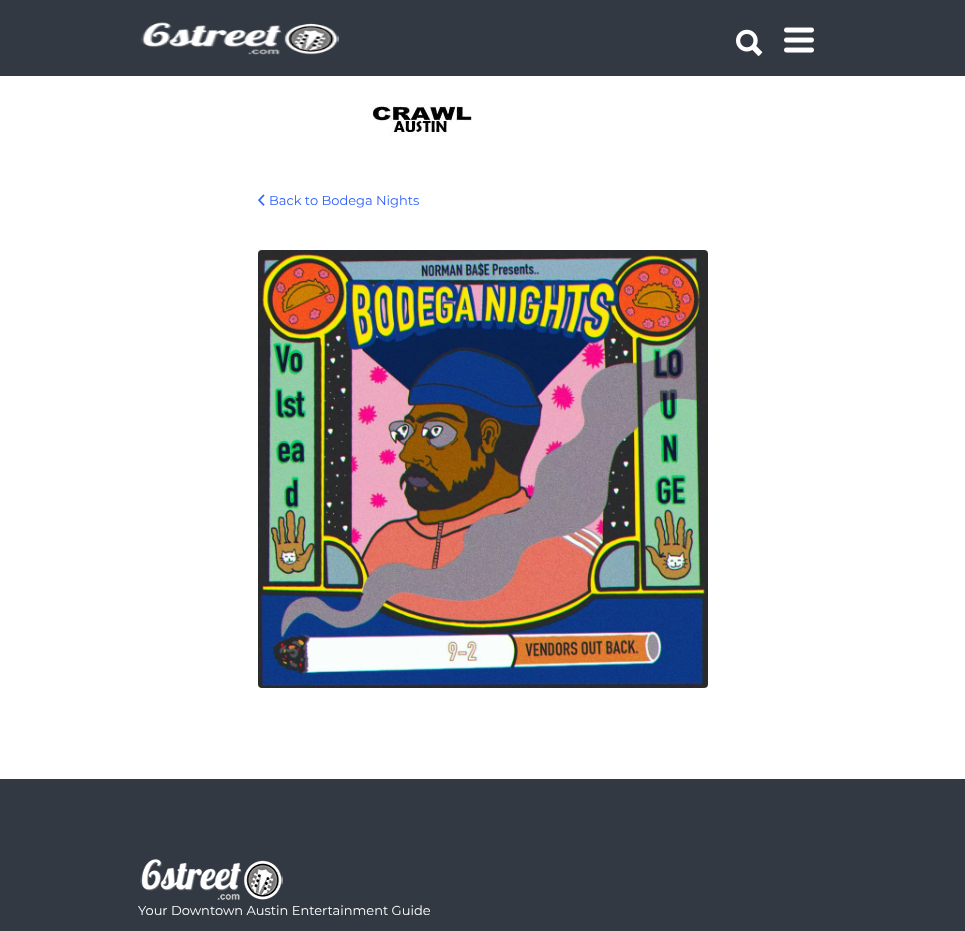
<!DOCTYPE html>
<meta charset="utf-8">
<style>body { margin: 0 } canvas { display: block }</style>
<canvas id="canvas" width="965" height="931"></canvas>
<script type="module">
  const canvas = document.getElementById("canvas");
  const g = canvas.getContext("2d");
  g.miterLimit = 4;
  g.fontKerning = "normal";
  function drawText(s, x, y, [font, color]) {
    g.font = font;
    g.fillStyle = color;
    g.fillText(s, x, y);
  }
  function fillBox(x, y, w, h, color) {
    g.fillStyle = color;
    g.fillRect(x, y, w, h);
  }
  async function drawPicture(src, x, y, w, h) {
    const img = new Image();
    img.src = src;
    await img.decode();
    g.drawImage(img, x, y, w, h);
  }

  const s1 = ["13px Montserrat", "#3061FF"];
  const s2 = ["13px Montserrat", "#FFFFFF"];

  fillBox(0, 0, 965, 931, "#FFFFFF");
  fillBox(0, 0, 965, 76, "#333943");
  await drawPicture("pic1.png", 140, 22, 199, 33);
  await drawPicture("pic2.png", 736, 29, 27, 27);
  await drawPicture("pic3.png", 784, 27, 30, 26);
  await drawPicture("pic4.png", 372, 106, 100, 30);
  await drawPicture("pic5.png", 258, 194, 7, 12);
  drawText("Back to Bodega Nights", 269, 205, s1);
  await drawPicture("pic6.png", 258, 250, 450, 438);
  fillBox(0, 779, 965, 152, "#333942");
  await drawPicture("pic7.png", 140, 859, 143, 41);
  drawText("Your Downtown Austin Entertainment Guide", 138, 915, s2);
</script>
